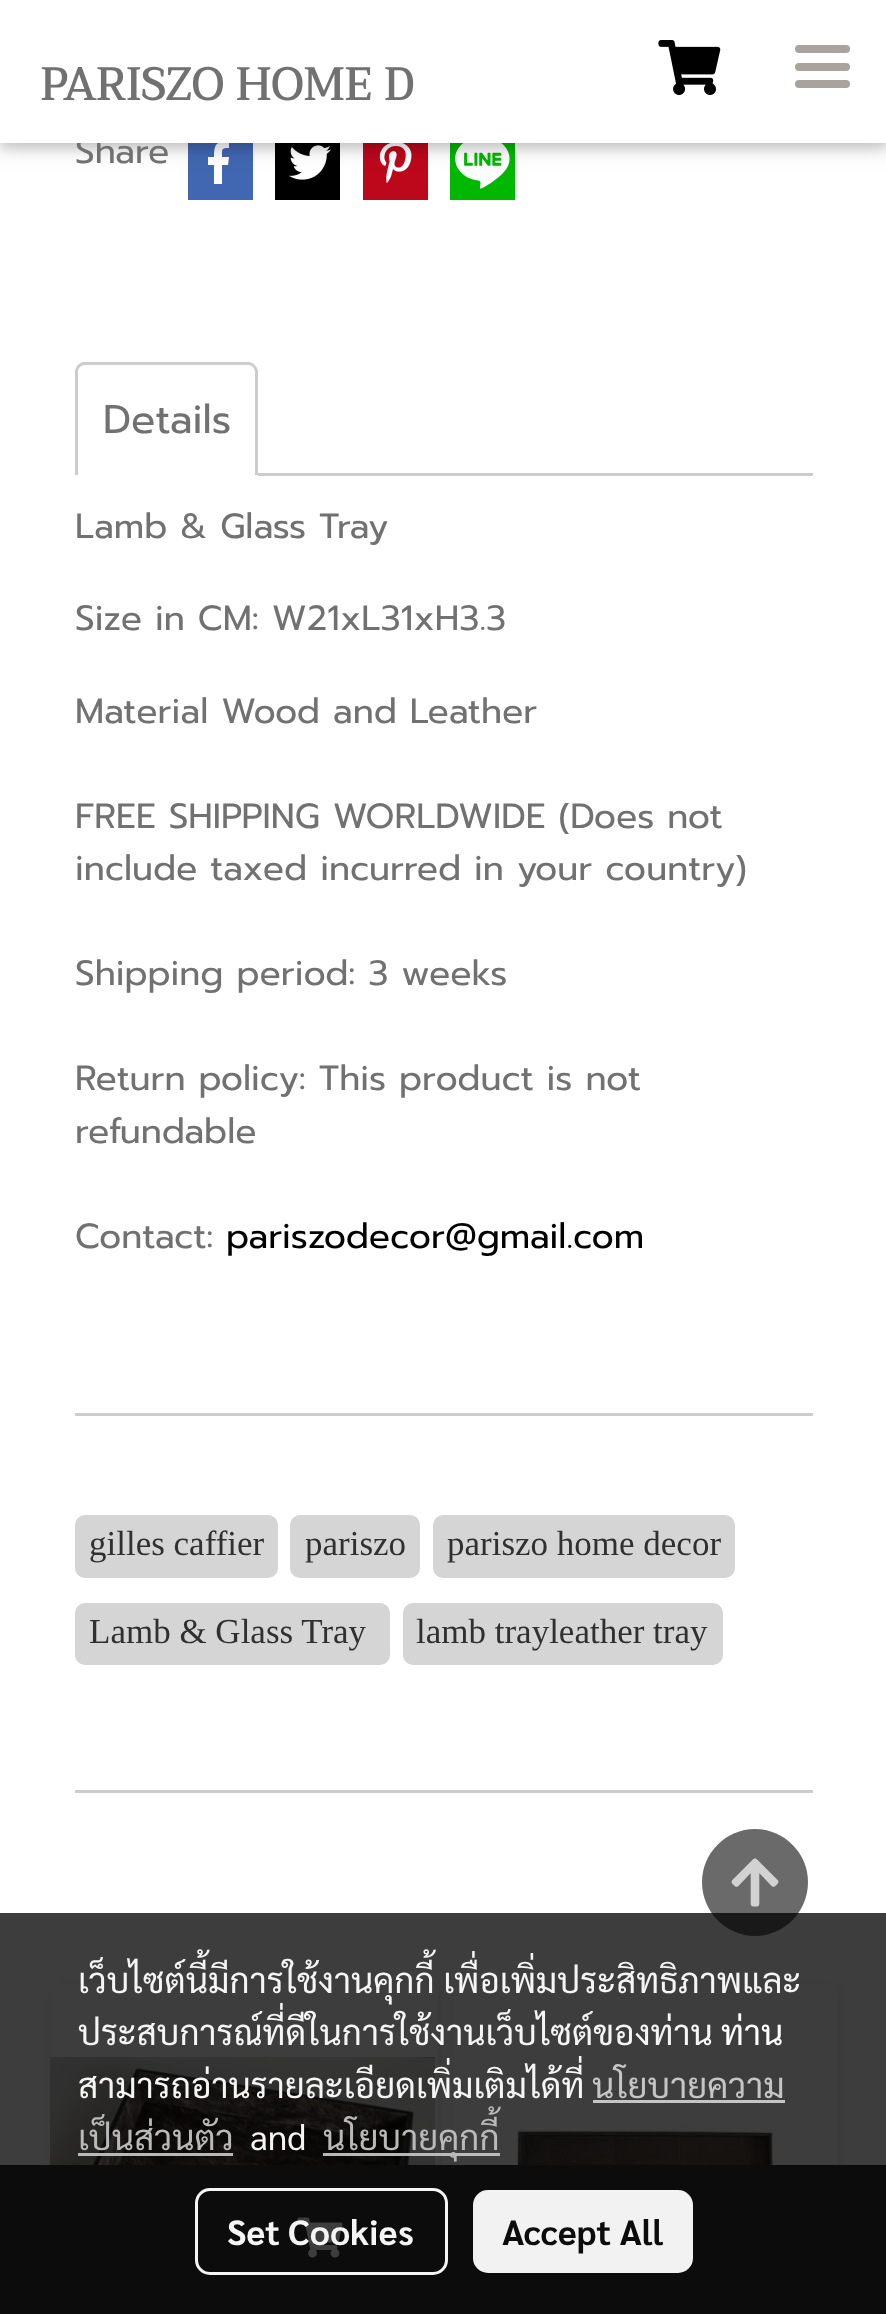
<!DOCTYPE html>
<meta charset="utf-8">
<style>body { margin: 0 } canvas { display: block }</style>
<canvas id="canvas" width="886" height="2314"></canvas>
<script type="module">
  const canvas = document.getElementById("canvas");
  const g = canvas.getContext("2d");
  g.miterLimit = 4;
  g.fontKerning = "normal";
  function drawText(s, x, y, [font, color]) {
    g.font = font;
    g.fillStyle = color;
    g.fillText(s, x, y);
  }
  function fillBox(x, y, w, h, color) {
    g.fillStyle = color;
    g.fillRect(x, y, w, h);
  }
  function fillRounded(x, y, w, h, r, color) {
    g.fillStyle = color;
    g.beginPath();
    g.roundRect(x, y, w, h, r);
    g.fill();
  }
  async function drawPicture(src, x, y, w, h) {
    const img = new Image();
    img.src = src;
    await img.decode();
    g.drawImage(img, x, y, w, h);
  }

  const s1 = ["35px Prompt", "#717171"];
  const s2 = ["bold 45px Trirong", "#717171"];
  const s3 = ["40px Prompt", "#717171"];
  const s4 = ["35px Prompt", "#000000"];
  const s5 = ["35px Liberation Serif", "#303030"];
  const s6 = ["35px Sarabun", "#F5F5F5"];
  const s7 = ["35px Sarabun", "#FFFFFF"];
  const s8 = ["35px Sarabun", "#C5C5C5"];
  const s9 = ["35px Sarabun", "#B9B9B9"];
  const s10 = ["bold 35px Sarabun", "#F5F5F5"];
  const s11 = ["bold 35px Sarabun", "#0C0C0C"];

  fillBox(0, 0, 886, 2314, "#FFFFFF");
  fillBox(188, 143, 65, 57, "#4267B2");
  g.fillStyle = "#FFFFFF";
  g.beginPath();
  g.moveTo(214, 184);
  g.lineTo(214, 165);
  g.lineTo(208, 165);
  g.lineTo(208, 157);
  g.lineTo(214, 157);
  g.bezierCurveTo(214, 145, 216, 140, 229, 142);
  g.lineTo(229, 148);
  g.bezierCurveTo(221, 148, 222, 149, 222, 157);
  g.lineTo(229, 157);
  g.lineTo(228, 165);
  g.lineTo(222, 165);
  g.lineTo(222, 184);
  g.fill();
  fillBox(275, 143, 65, 57, "#000000");
  await drawPicture("pic2.png", 289, 145, 42, 35);
  fillBox(363, 143, 65, 57, "#BD081C");
  await drawPicture("pic3.png", 379, 143, 33, 40);
  fillBox(450, 143, 65, 57, "#00B800");
  await drawPicture("pic4.png", 455, 143, 55, 46);
  g.fillStyle = "rgba(0, 0, 0, 0.12)";
  g.filter = "blur(12.5px)";
  g.beginPath();
  g.rect(0, 5, 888, 143);
  g.fill();
  g.filter = "none";
  g.fillStyle = "rgba(0, 0, 0, 0.16)";
  g.filter = "blur(6px)";
  g.beginPath();
  g.rect(0, 5, 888, 143);
  g.fill();
  g.filter = "none";
  drawText("Share", 75, 163, s1);
  fillBox(0, 0, 886, 143, "#FFFFFF");
  drawText("PARISZO HOME D", 40, 100, s2);
  await drawPicture("pic1.png", 658, 40, 63, 55);
  fillRounded(795, 63, 55, 8, 4, "#A8A39D");
  fillRounded(795, 45, 55, 8, 4, "#A8A39D");
  fillRounded(795, 80, 55, 8, 4, "#A8A39D");
  g.save();
  g.beginPath();
  g.moveTo(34, 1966);
  g.lineTo(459, 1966);
  g.lineTo(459, 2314);
  g.lineTo(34, 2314);
  g.closePath();
  g.moveTo(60, 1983);
  g.lineTo(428, 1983);
  g.bezierCurveTo(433.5, 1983, 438, 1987.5, 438, 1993);
  g.lineTo(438, 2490);
  g.bezierCurveTo(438, 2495.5, 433.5, 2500, 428, 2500);
  g.lineTo(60, 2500);
  g.bezierCurveTo(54.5, 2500, 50, 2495.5, 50, 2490);
  g.lineTo(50, 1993);
  g.bezierCurveTo(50, 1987.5, 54.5, 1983, 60, 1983);
  g.closePath();
  g.clip("evenodd");
  g.fillStyle = "rgba(0, 0, 0, 0.1)";
  g.filter = "blur(6px)";
  g.beginPath();
  g.roundRect(53, 1985, 387, 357, 10);
  g.fill();
  g.filter = "none";
  g.restore();
  g.save();
  g.beginPath();
  g.moveTo(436, 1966);
  g.lineTo(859, 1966);
  g.lineTo(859, 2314);
  g.lineTo(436, 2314);
  g.closePath();
  g.moveTo(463, 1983);
  g.lineTo(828, 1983);
  g.bezierCurveTo(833.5, 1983, 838, 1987.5, 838, 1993);
  g.lineTo(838, 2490);
  g.bezierCurveTo(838, 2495.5, 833.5, 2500, 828, 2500);
  g.lineTo(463, 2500);
  g.bezierCurveTo(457.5, 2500, 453, 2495.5, 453, 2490);
  g.lineTo(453, 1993);
  g.bezierCurveTo(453, 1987.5, 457.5, 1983, 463, 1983);
  g.closePath();
  g.clip("evenodd");
  g.fillStyle = "rgba(0, 0, 0, 0.1)";
  g.filter = "blur(6px)";
  g.beginPath();
  g.roundRect(455, 1985, 385, 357, 10);
  g.fill();
  g.filter = "none";
  g.restore();
  fillBox(0, 2165, 886, 149, "#333333");
  await drawPicture("pic5.png", 297, 2217, 46, 41);
  g.fillStyle = "#CCCCCC";
  g.beginPath();
  g.moveTo(85, 362);
  g.lineTo(248, 362);
  g.bezierCurveTo(253, 362, 258, 367, 258, 372);
  g.lineTo(258, 475);
  g.lineTo(75, 475);
  g.lineTo(75, 372);
  g.bezierCurveTo(75, 367, 79, 362, 85, 362);
  g.closePath();
  g.moveTo(85, 365);
  g.lineTo(248, 365);
  g.bezierCurveTo(252, 365, 255, 368, 255, 372);
  g.lineTo(255, 475);
  g.lineTo(78, 475);
  g.lineTo(78, 372);
  g.bezierCurveTo(78, 368, 81, 365, 85, 365);
  g.closePath();
  g.fill("evenodd");
  drawText("Details", 103, 433, s3);
  fillBox(258, 473, 555, 3, "#CCCCCC");
  drawText("Lamb & Glass Tray", 75, 538, s1);
  drawText("Size in CM: W21xL31xH3.3", 75, 630, s1);
  drawText("Material Wood and Leather", 75, 723, s1);
  drawText("FREE SHIPPING WORLDWIDE (Does not", 75, 828, s1);
  drawText("include taxed incurred in your country)", 75, 880, s1);
  drawText("Shipping period: 3 weeks", 75, 985, s1);
  drawText("Return policy: This product is not", 75, 1090, s1);
  drawText("refundable", 75, 1143, s1);
  drawText("Contact:", 75, 1248, s1);
  drawText("pariszodecor@gmail.com", 226, 1248, s4);
  fillBox(75, 1413, 738, 3, "#CCCCCC");
  fillRounded(75, 1515, 203, 63, 10, "#D5D5D5");
  drawText("gilles caffier", 89, 1555, s5);
  fillRounded(290, 1515, 130, 63, 10, "#D5D5D5");
  drawText("pariszo", 305, 1555, s5);
  fillRounded(433, 1515, 302, 63, 10, "#D5D5D5");
  drawText("pariszo home decor", 447, 1555, s5);
  fillRounded(75, 1603, 315, 62, 10, "#D5D5D5");
  drawText("Lamb & Glass Tray", 89, 1643, s5);
  fillRounded(403, 1603, 320, 62, 10, "#D5D5D5");
  drawText("lamb trayleather tray", 416, 1643, s5);
  fillBox(75, 1790, 738, 3, "#CCCCCC");
  await drawPicture("pic6.png", 50, 2057, 385, 108);
  await drawPicture("pic7.png", 506, 1982, 281, 183);
  g.fillStyle = "#6B6A6A";
  g.beginPath();
  g.moveTo(755, 1829);
  g.bezierCurveTo(726, 1829, 702, 1853, 702, 1882);
  g.bezierCurveTo(702, 1912, 726, 1936, 755, 1936);
  g.bezierCurveTo(784, 1936, 808, 1912, 808, 1882);
  g.bezierCurveTo(808, 1853, 784, 1829, 755, 1829);
  g.closePath();
  g.fill();
  await drawPicture("pic8.png", 731, 1858, 48, 49);
  fillBox(0, 1913, 886, 401, "rgba(0, 0, 0, 0.76)");
  drawText("เว็บไซต์นี้มีการใช้งานคุกกี้ เพื่อเพิ่มประสิทธิภาพและ", 78, 1993, s6);
  drawText("ประสบการณ์ที่ดีในการใช้งานเว็บไซต์ของท่าน", 78, 2045, s6);
  drawText("ท่าน", 721, 2045, s7);
  drawText("สามารถอ่านรายละเอียดเพิ่มเติมได้ที่", 78, 2098, s6);
  drawText("นโยบายความ", 592, 2098, s8);
  fillBox(593, 2100, 192, 3, "#C5C5C5");
  drawText("เป็นส่วนตัว", 78, 2150, s9);
  fillBox(78, 2153, 155, 3, "rgba(194, 194, 194, 0.95)");
  drawText("and", 250, 2150, s6);
  fillBox(323, 2153, 177, 3, "rgba(194, 194, 194, 0.95)");
  drawText("นโยบายคุกกี้", 323, 2150, s9);
  g.beginPath();
  g.roundRect(196.5, 2189.5, 250, 84, 13.5);
  g.strokeStyle = "#F5F5F5";
  g.lineWidth = 3;
  g.stroke();
  drawText("Set Cookies", 227, 2245, s10);
  fillRounded(473, 2190, 220, 83, 15, "rgba(255, 255, 255, 0.95)");
  drawText("Accept All", 502, 2245, s11);
</script>
